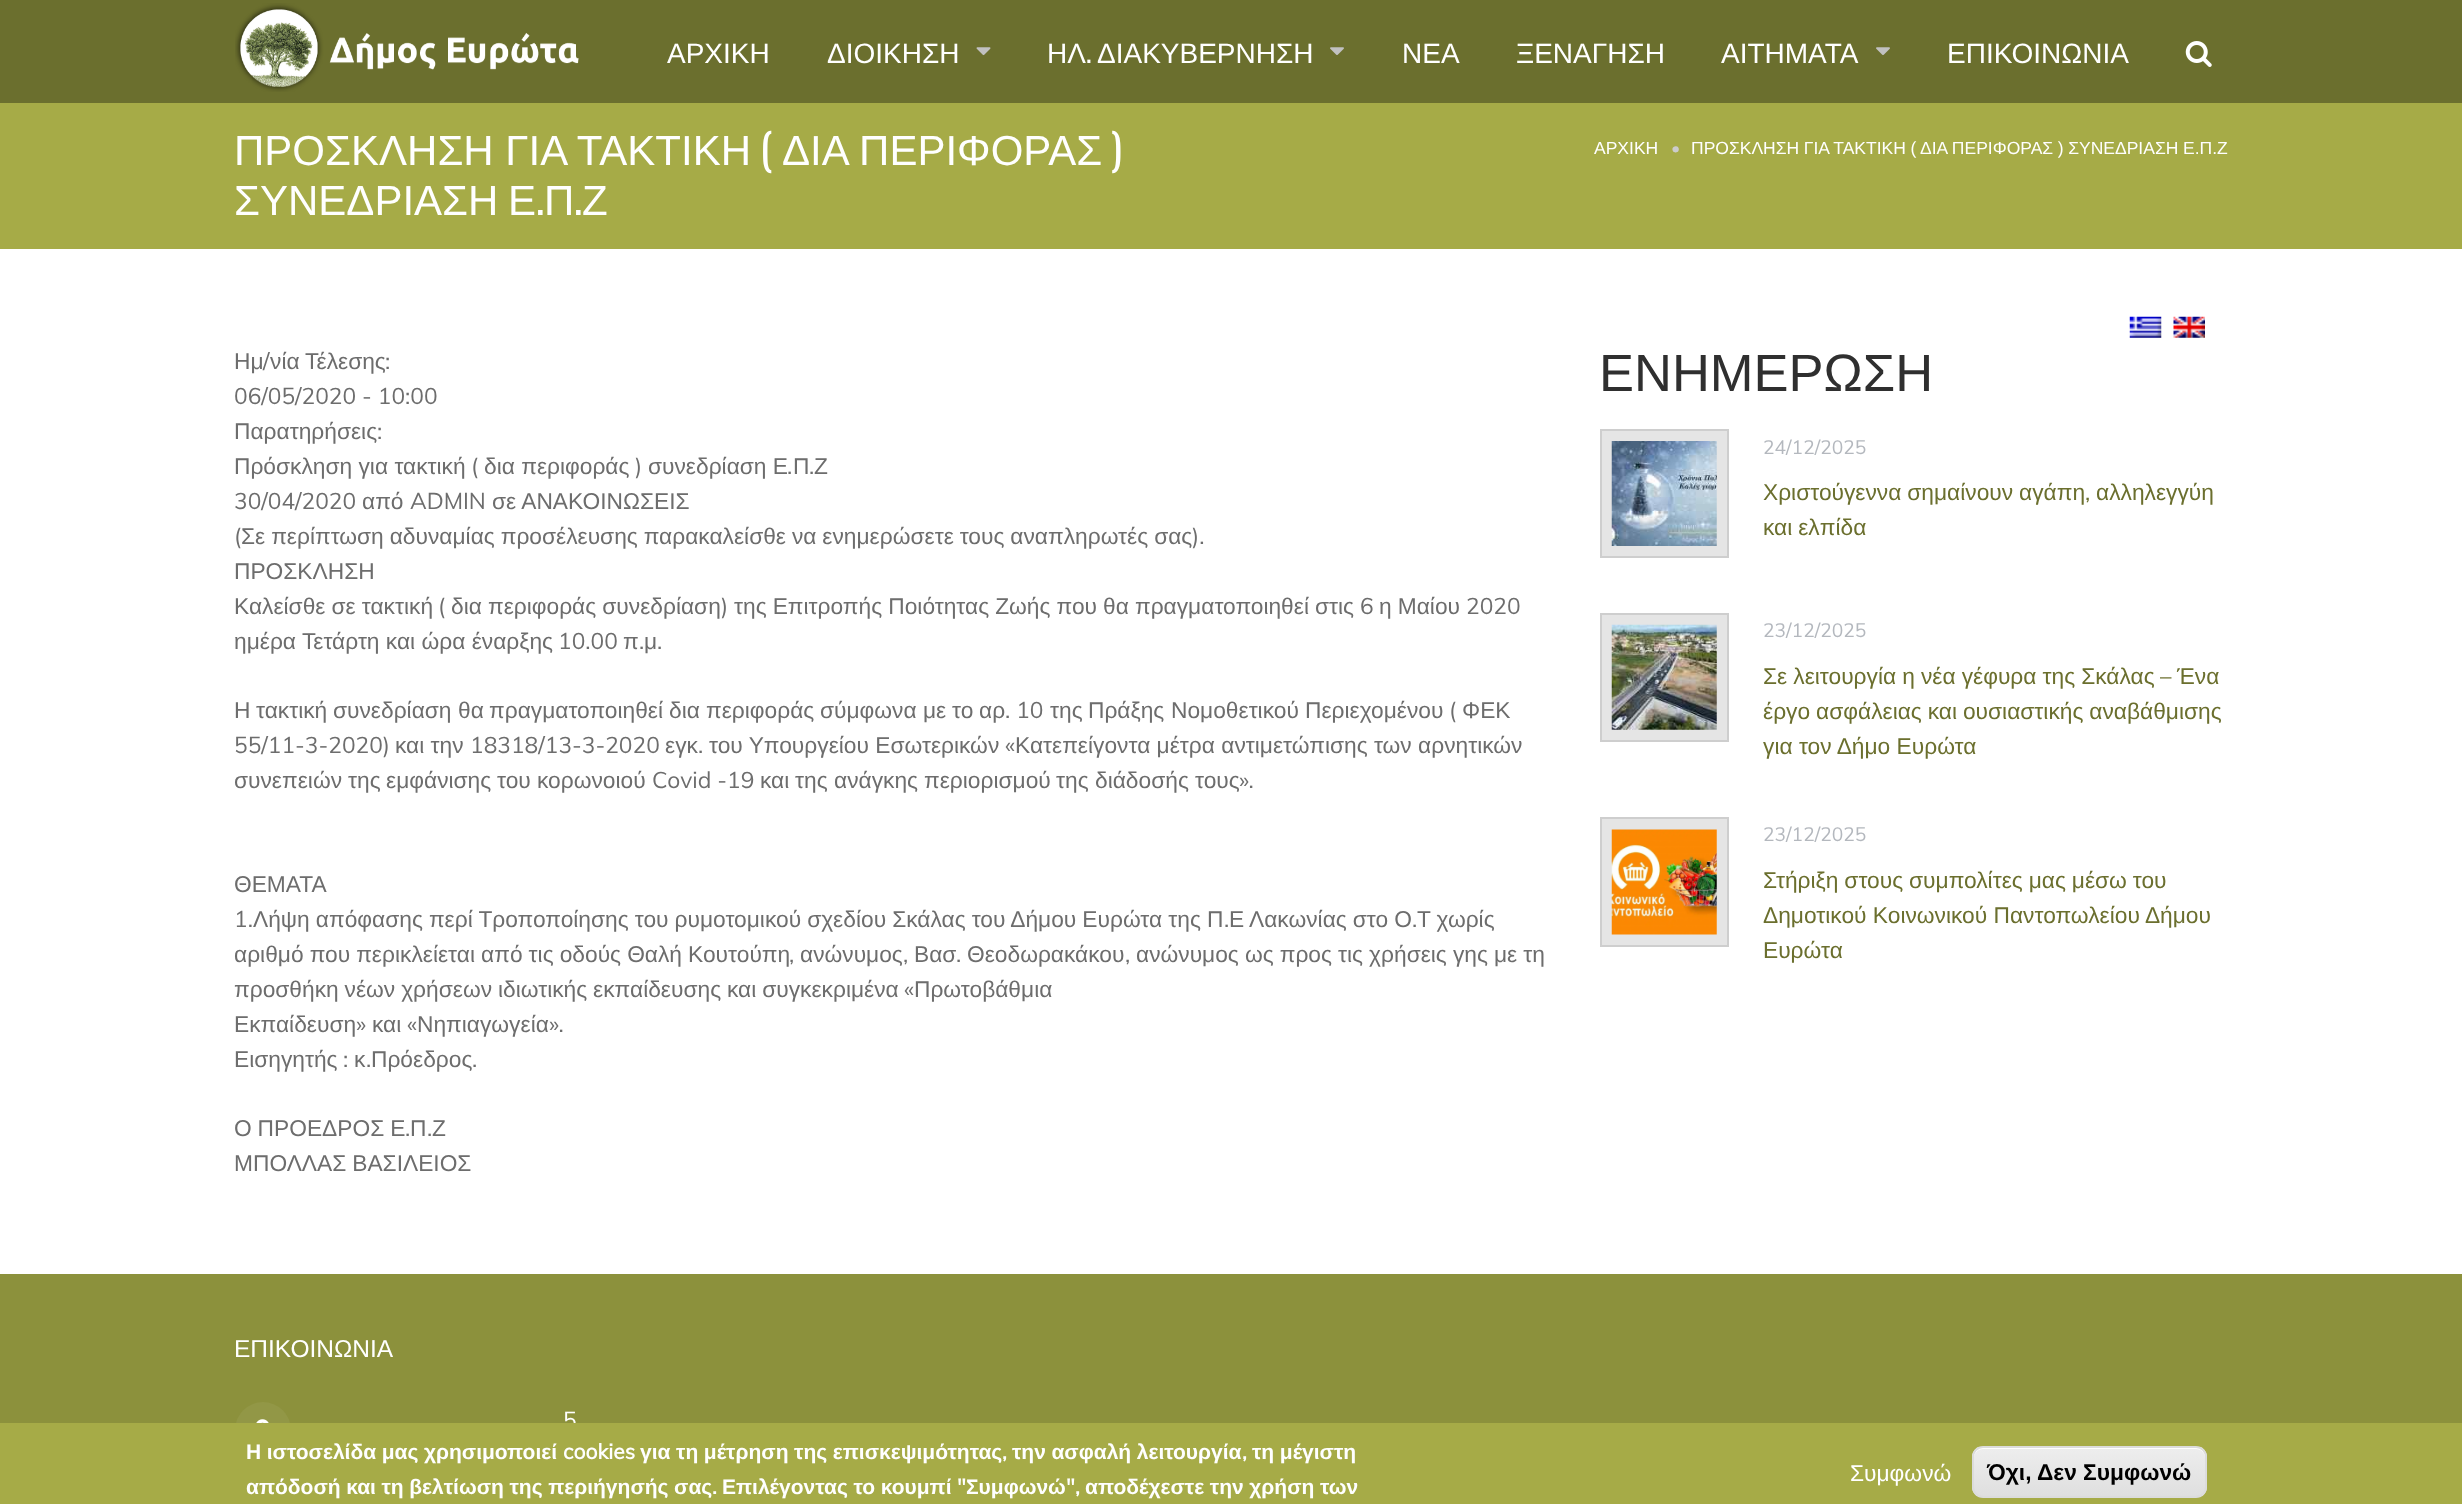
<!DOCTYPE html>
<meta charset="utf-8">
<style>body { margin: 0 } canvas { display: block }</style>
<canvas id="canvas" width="2462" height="1504"></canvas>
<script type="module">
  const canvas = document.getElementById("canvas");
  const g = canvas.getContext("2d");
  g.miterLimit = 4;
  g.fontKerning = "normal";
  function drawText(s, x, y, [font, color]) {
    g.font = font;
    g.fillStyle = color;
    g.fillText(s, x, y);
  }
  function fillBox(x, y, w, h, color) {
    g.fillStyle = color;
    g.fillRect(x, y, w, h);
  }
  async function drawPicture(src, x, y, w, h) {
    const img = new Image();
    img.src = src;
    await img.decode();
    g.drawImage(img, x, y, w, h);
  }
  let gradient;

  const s1 = ["28px Liberation Sans", "#FFFFFF"];
  const s2 = ["28px Oswald", "#FFFFFF"];
  const s3 = ["42px Liberation Sans", "#FFFFFF"];
  const s4 = ["42px Oswald", "#FFFFFF"];
  const s5 = ["17.5px Liberation Sans", "#FFFFFF"];
  const s6 = ["17.5px Muli", "#CCCCCC"];
  const s7 = ["22.75px Liberation Sans", "#6D6D6D"];
  const s8 = ["22.75px Muli", "#6D6D6D"];
  const s9 = ["52.5px Liberation Sans", "#2F2F2F"];
  const s10 = ["19.25px Muli", "#B4B8BE"];
  const s11 = ["22.75px Liberation Sans", "#6B6F2E"];
  const s12 = ["22.75px Muli", "#6B6F2E"];
  const s13 = ["24.5px Liberation Sans", "#FFFFFF"];
  const s14 = ["22.75px Muli", "#FFFFFF"];
  const s15 = ["bold 21px Liberation Sans", "#FFFFFF"];
  const s16 = ["bold 21px Muli", "#FFFFFF"];
  const s17 = ["22.75px Liberation Sans", "#FFFFFF"];
  const s18 = ["bold 22.75px Liberation Sans", "#000000"];

  fillBox(0, 0, 2462, 1504, "#FFFFFF");
  fillBox(0, 0, 2462, 103, "#6B6F2E");
  await drawPicture("pic1.png", 235, 3, 344, 89);
  drawText("ΑΡΧΙΚΗ", 667, 63, s1);
  drawText("ΔΙΟΙΚΗΣΗ", 827, 63, s1);
  await drawPicture("pic2.png", 976, 47, 15, 9);
  drawText("ΗΛ", 1047, 63, s1);
  drawText("ΔΙΑΚΥΒΕΡΝΗΣΗ", 1097, 63, s1);
  await drawPicture("pic3.png", 1330, 47, 14, 8);
  drawText(".", 1086, 63, s2);
  drawText("ΝΕΑ", 1402, 63, s1);
  drawText("ΞΕΝΑΓΗΣΗ", 1516, 63, s1);
  drawText("ΑΙΤΗΜΑΤΑ", 1721, 63, s1);
  await drawPicture("pic3.png", 1876, 47, 14, 8);
  drawText("ΕΠΙΚΟΙΝΩΝΙΑ", 1947, 63, s1);
  await drawPicture("pic4.png", 2185, 41, 27, 26);
  fillBox(0, 103, 2462, 146, "#A6AB47");
  drawText("ΠΡΟΣΚΛΗΣΗ ΓΙΑ ΤΑΚΤΙΚΗ", 234, 165, s3);
  drawText("(", 760, 165, s4);
  drawText("ΔΙΑ ΠΕΡΙΦΟΡΑΣ", 782, 165, s3);
  drawText(")", 1111, 165, s4);
  g.wordSpacing = "-2px";
  drawText("ΣΥΝΕΔΡΙΑΣΗ Ε", 234, 215, s3);
  g.wordSpacing = "0px";
  drawText(".", 536, 215, s4);
  drawText("Π", 544, 215, s3);
  drawText(".", 574, 215, s4);
  drawText("Ζ", 582, 215, s3);
  drawText("ΑΡΧΙΚΗ", 1594, 154, s5);
  drawText("•", 1671, 154, s6);
  g.wordSpacing = "-0.25px";
  drawText("ΠΡΟΣΚΛΗΣΗ ΓΙΑ ΤΑΚΤΙΚΗ ( ΔΙΑ ΠΕΡΙΦΟΡΑΣ ) ΣΥΝΕΔΡΙΑΣΗ Ε.Π.Ζ", 1691, 154, s5);
  await drawPicture("pic5.png", 2129, 316, 33, 22);
  await drawPicture("pic6.png", 2173, 316, 32, 22);
  g.wordSpacing = "0px";
  drawText("Ημ", 234, 369, s7);
  drawText("/", 263, 369, s8);
  g.wordSpacing = "-0.4px";
  drawText("νία Τέλεσης", 270, 369, s7);
  g.wordSpacing = "0px";
  drawText(":", 385, 369, s8);
  drawText("06/05/2020 - 10:00", 234, 404, s8);
  drawText("Παρατηρήσεις", 234, 439, s7);
  drawText(":", 377, 439, s8);
  drawText("Πρόσκληση για τακτική", 234, 474, s7);
  drawText("(", 471, 474, s8);
  drawText("δια περιφοράς", 484, 474, s7);
  drawText(")", 635, 474, s8);
  drawText("συνεδρίαση Ε", 648, 474, s7);
  drawText(".", 787, 474, s8);
  drawText("Π", 793, 474, s7);
  drawText(".", 809, 474, s8);
  drawText("Ζ", 814, 474, s7);
  drawText("30/04/2020", 234, 509, s8);
  drawText("από", 362, 509, s7);
  drawText("ADMIN", 410, 509, s8);
  drawText("σε ΑΝΑΚΟΙΝΩΣΕΙΣ", 492, 509, s7);
  drawText("(", 234, 544, s8);
  g.wordSpacing = "-0.4px";
  drawText("Σε περίπτωση αδυναμίας προσέλευσης παρακαλείσθε να ενημερώσετε τους αναπληρωτές σας", 241, 544, s7);
  g.wordSpacing = "0px";
  drawText(").", 1192, 544, s8);
  drawText("ΠΡΟΣΚΛΗΣΗ", 234, 579, s7);
  g.wordSpacing = "-0.25px";
  drawText("Καλείσθε σε τακτική", 234, 614, s7);
  g.wordSpacing = "0px";
  drawText("(", 438, 614, s8);
  g.wordSpacing = "-0.25px";
  drawText("δια περιφοράς συνεδρίαση", 451, 614, s7);
  g.wordSpacing = "0px";
  drawText(")", 721, 614, s8);
  g.wordSpacing = "-0.25px";
  drawText("της Επιτροπής Ποιότητας Ζωής που θα πραγματοποιηθεί στις", 734, 614, s7);
  g.wordSpacing = "0px";
  drawText("6", 1360, 614, s8);
  g.wordSpacing = "-0.25px";
  drawText("η Μαίου", 1379, 614, s7);
  g.wordSpacing = "0px";
  drawText("2020", 1466, 614, s8);
  drawText("ημέρα Τετάρτη και ώρα έναρξης", 234, 649, s7);
  drawText("10.00", 558, 649, s8);
  drawText("π", 623, 649, s7);
  drawText(".", 639, 649, s8);
  drawText("μ", 644, 649, s7);
  drawText(".", 657, 649, s8);
  drawText("Η", 234, 718, s7);
  drawText("τακτική", 256, 718, s7);
  drawText("συνεδρίαση", 333, 718, s7);
  drawText("θα", 458, 718, s7);
  drawText("πραγματοποιηθεί", 489, 718, s7);
  drawText("δια", 669, 718, s7);
  drawText("περιφοράς", 706, 718, s7);
  drawText("σύμφωνα", 820, 718, s7);
  drawText("με", 923, 718, s7);
  drawText("το", 952, 718, s7);
  drawText("αρ", 979, 718, s7);
  drawText(". 10", 1005, 718, s8);
  drawText("της", 1050, 718, s7);
  drawText("Πράξης", 1088, 718, s7);
  drawText("Νομοθετικού", 1171, 718, s7);
  drawText("Περιεχομένου", 1305, 718, s7);
  drawText("(", 1449, 718, s8);
  drawText("ΦΕΚ", 1462, 718, s7);
  drawText("55/11-3-2020)", 234, 753, s8);
  drawText("και την", 395, 753, s7);
  drawText("18318/13-3-2020", 470, 753, s8);
  drawText("εγκ", 665, 753, s7);
  drawText("του Υπουργείου Εσωτερικών", 709, 753, s7);
  drawText("«", 1005, 753, s8);
  drawText("Κατεπείγοντα μέτρα αντιμετώπισης των αρνητικών", 1015, 753, s7);
  drawText(".", 698, 753, s8);
  drawText("συνεπειών", 234, 788, s7);
  drawText("της", 348, 788, s7);
  drawText("εμφάνισης", 386, 788, s7);
  drawText("του", 497, 788, s7);
  drawText("κορωνοιού", 537, 788, s7);
  drawText("Covid -19", 652, 788, s8);
  drawText("και", 760, 788, s7);
  drawText("της", 795, 788, s7);
  drawText("ανάγκης", 834, 788, s7);
  drawText("περιορισμού", 924, 788, s7);
  drawText("της", 1056, 788, s7);
  drawText("διάδοσής", 1095, 788, s7);
  drawText("τους", 1195, 788, s7);
  drawText("».", 1239, 788, s8);
  drawText("ΘΕΜΑΤΑ", 234, 892, s7);
  drawText("1.", 234, 927, s8);
  g.wordSpacing = "-0.25px";
  drawText("Λήψη απόφασης περί Τροποποίησης του ρυμοτομικού σχεδίου Σκάλας του Δήμου Ευρώτα της Π", 253, 927, s7);
  g.wordSpacing = "0px";
  drawText(".", 1224, 927, s8);
  g.wordSpacing = "-0.25px";
  drawText("Ε Λακωνίας στο Ο", 1229, 927, s7);
  g.wordSpacing = "0px";
  drawText(".", 1412, 927, s8);
  g.wordSpacing = "-0.25px";
  drawText("Τ χωρίς", 1417, 927, s7);
  drawText("αριθμό που περικλείεται από τις οδούς Θαλή Κουτούπη", 234, 962, s7);
  g.wordSpacing = "0px";
  drawText(",", 789, 962, s8);
  drawText("ανώνυμος", 800, 962, s7);
  drawText(",", 903, 962, s8);
  drawText("Βασ", 914, 962, s7);
  drawText(".", 956, 962, s8);
  drawText("Θεοδωρακάκου", 967, 962, s7);
  drawText(",", 1125, 962, s8);
  g.wordSpacing = "-0.25px";
  drawText("ανώνυμος ως προς τις χρήσεις γης με τη", 1136, 962, s7);
  g.wordSpacing = "-0.4px";
  drawText("προσθήκη νέων χρήσεων ιδιωτικής εκπαίδευσης και συγκεκριμένα", 234, 997, s7);
  g.wordSpacing = "0px";
  drawText("«", 904, 997, s8);
  drawText("Πρωτοβάθμια", 914, 997, s7);
  drawText("Εκπαίδευση", 234, 1032, s7);
  drawText("»", 356, 1032, s8);
  drawText("και", 372, 1032, s7);
  drawText("«", 407, 1032, s8);
  drawText("Νηπιαγωγεία", 417, 1032, s7);
  drawText("».", 549, 1032, s8);
  drawText("Εισηγητής", 234, 1067, s7);
  drawText(":", 343, 1067, s8);
  drawText("κ", 354, 1067, s7);
  drawText(".", 366, 1067, s8);
  drawText("Πρόεδρος", 371, 1067, s7);
  drawText(".", 472, 1067, s8);
  g.wordSpacing = "-0.4px";
  drawText("Ο ΠΡΟΕΔΡΟΣ Ε", 234, 1136, s7);
  g.wordSpacing = "0px";
  drawText(".", 405, 1136, s8);
  drawText("Π", 410, 1136, s7);
  drawText(".", 427, 1136, s8);
  drawText("Ζ", 432, 1136, s7);
  g.wordSpacing = "-0.4px";
  drawText("ΜΠΟΛΛΑΣ ΒΑΣΙΛΕΙΟΣ", 234, 1171, s7);
  g.wordSpacing = "0px";
  drawText("ΕΝΗΜΕΡΩΣΗ", 1599, 391, s9);
  g.fillStyle = "#E5E5E5";
  g.beginPath();
  g.rect(1601, 430, 127, 127);
  g.fill();
  g.strokeStyle = "#CECECE";
  g.lineWidth = 2;
  g.stroke();
  await drawPicture("pic7.png", 1611, 441, 106, 105);
  drawText("24/12/2025", 1763, 454, s10);
  g.wordSpacing = "-0.4px";
  drawText("Χριστούγεννα σημαίνουν αγάπη", 1763, 500, s11);
  g.wordSpacing = "0px";
  drawText(",", 2085, 500, s12);
  drawText("αλληλεγγύη", 2096, 500, s11);
  g.wordSpacing = "-0.4px";
  drawText("και ελπίδα", 1763, 535, s11);
  g.fillStyle = "#E5E5E5";
  g.beginPath();
  g.rect(1601, 614, 127, 127);
  g.fill();
  g.stroke();
  await drawPicture("pic8.png", 1611, 624, 106, 106);
  g.wordSpacing = "0px";
  drawText("23/12/2025", 1763, 637, s10);
  g.wordSpacing = "-0.25px";
  drawText("Σε λειτουργία η νέα γέφυρα της Σκάλας", 1763, 684, s11);
  g.wordSpacing = "0px";
  drawText("–", 2160, 684, s12);
  drawText("Ένα", 2177, 684, s11);
  g.wordSpacing = "-0.4px";
  drawText("έργο ασφάλειας και ουσιαστικής αναβάθμισης", 1763, 719, s11);
  g.wordSpacing = "0px";
  drawText("για τον Δήμο Ευρώτα", 1763, 754, s11);
  g.fillStyle = "#E5E5E5";
  g.beginPath();
  g.rect(1601, 818, 127, 128);
  g.fill();
  g.stroke();
  await drawPicture("pic9.png", 1611, 829, 106, 106);
  drawText("23/12/2025", 1763, 841, s10);
  g.wordSpacing = "-0.4px";
  drawText("Στήριξη στους συμπολίτες μας μέσω του", 1763, 888, s11);
  g.wordSpacing = "0px";
  drawText("Δημοτικού Κοινωνικού Παντοπωλείου Δήμου", 1763, 923, s11);
  drawText("Ευρώτα", 1763, 958, s11);
  fillBox(0, 1274, 2462, 149, "#8C913C");
  drawText("ΕΠΙΚΟΙΝΩΝΙΑ", 234, 1357, s13);
  g.fillStyle = "#929746";
  g.beginPath();
  g.arc(263, 1430, 28, 0, Math.PI * 2);
  g.fill();
  await drawPicture("pic10.png", 256, 1419, 13, 4);
  drawText("5", 563, 1428, s14);
  fillBox(0, 1423, 2462, 81, "#A6AB47");
  g.wordSpacing = "-0.25px";
  drawText("Η ιστοσελίδα μας χρησιμοποιεί", 246, 1459, s15);
  g.wordSpacing = "0px";
  drawText("cookies", 563, 1459, s16);
  g.wordSpacing = "-0.25px";
  drawText("για τη μέτρηση της επισκεψιμότητας", 640, 1459, s15);
  g.wordSpacing = "0px";
  drawText(",", 1002, 1459, s16);
  g.wordSpacing = "-0.25px";
  drawText("την ασφαλή λειτουργία", 1012, 1459, s15);
  g.wordSpacing = "0px";
  drawText(",", 1242, 1459, s16);
  g.wordSpacing = "-0.25px";
  drawText("τη μέγιστη", 1252, 1459, s15);
  drawText("απόδοσή και τη βελτίωση της περιήγησής σας", 246, 1494, s15);
  g.wordSpacing = "0px";
  drawText(".", 712, 1494, s16);
  g.wordSpacing = "-0.25px";
  drawText("Επιλέγοντας το κουμπί", 722, 1494, s15);
  g.wordSpacing = "0px";
  drawText("\"", 957, 1494, s16);
  drawText("Συμφωνώ", 966, 1494, s15);
  drawText("\",", 1066, 1494, s16);
  g.wordSpacing = "-0.25px";
  drawText("αποδέχεστε την χρήση των", 1085, 1494, s15);
  g.wordSpacing = "0px";
  drawText("Συμφωνώ", 1850, 1481, s17);
  g.save();
  g.beginPath();
  g.roundRect(1972, 1446, 235, 52, 11);
  g.clip();
  gradient = g.createLinearGradient(2090, 1447, 2090, 1496);
  gradient.addColorStop(0.05, "#EDEDED");
  gradient.addColorStop(1, "#DFDFDF");
  g.fillStyle = gradient;
  g.fillRect(1972, 1447, 235, 49);
  g.restore();
  g.beginPath();
  g.moveTo(1983, 1449);
  g.lineTo(2196, 1449);
  g.bezierCurveTo(2201, 1449, 2205, 1453, 2205, 1458);
  g.lineTo(2205, 1456);
  g.bezierCurveTo(2205, 1451, 2201, 1447, 2196, 1447);
  g.lineTo(1983, 1447);
  g.bezierCurveTo(1978, 1447, 1974, 1451, 1974, 1456);
  g.lineTo(1974, 1458);
  g.bezierCurveTo(1974, 1453, 1978, 1449, 1983, 1449);
  g.closePath();
  g.fill();
  g.beginPath();
  g.roundRect(1973, 1447, 233, 50, 10);
  g.strokeStyle = "#DCDCDC";
  g.stroke();
  drawText("Όχι, Δεν Συμφωνώ", 1987, 1480, s18);
</script>
